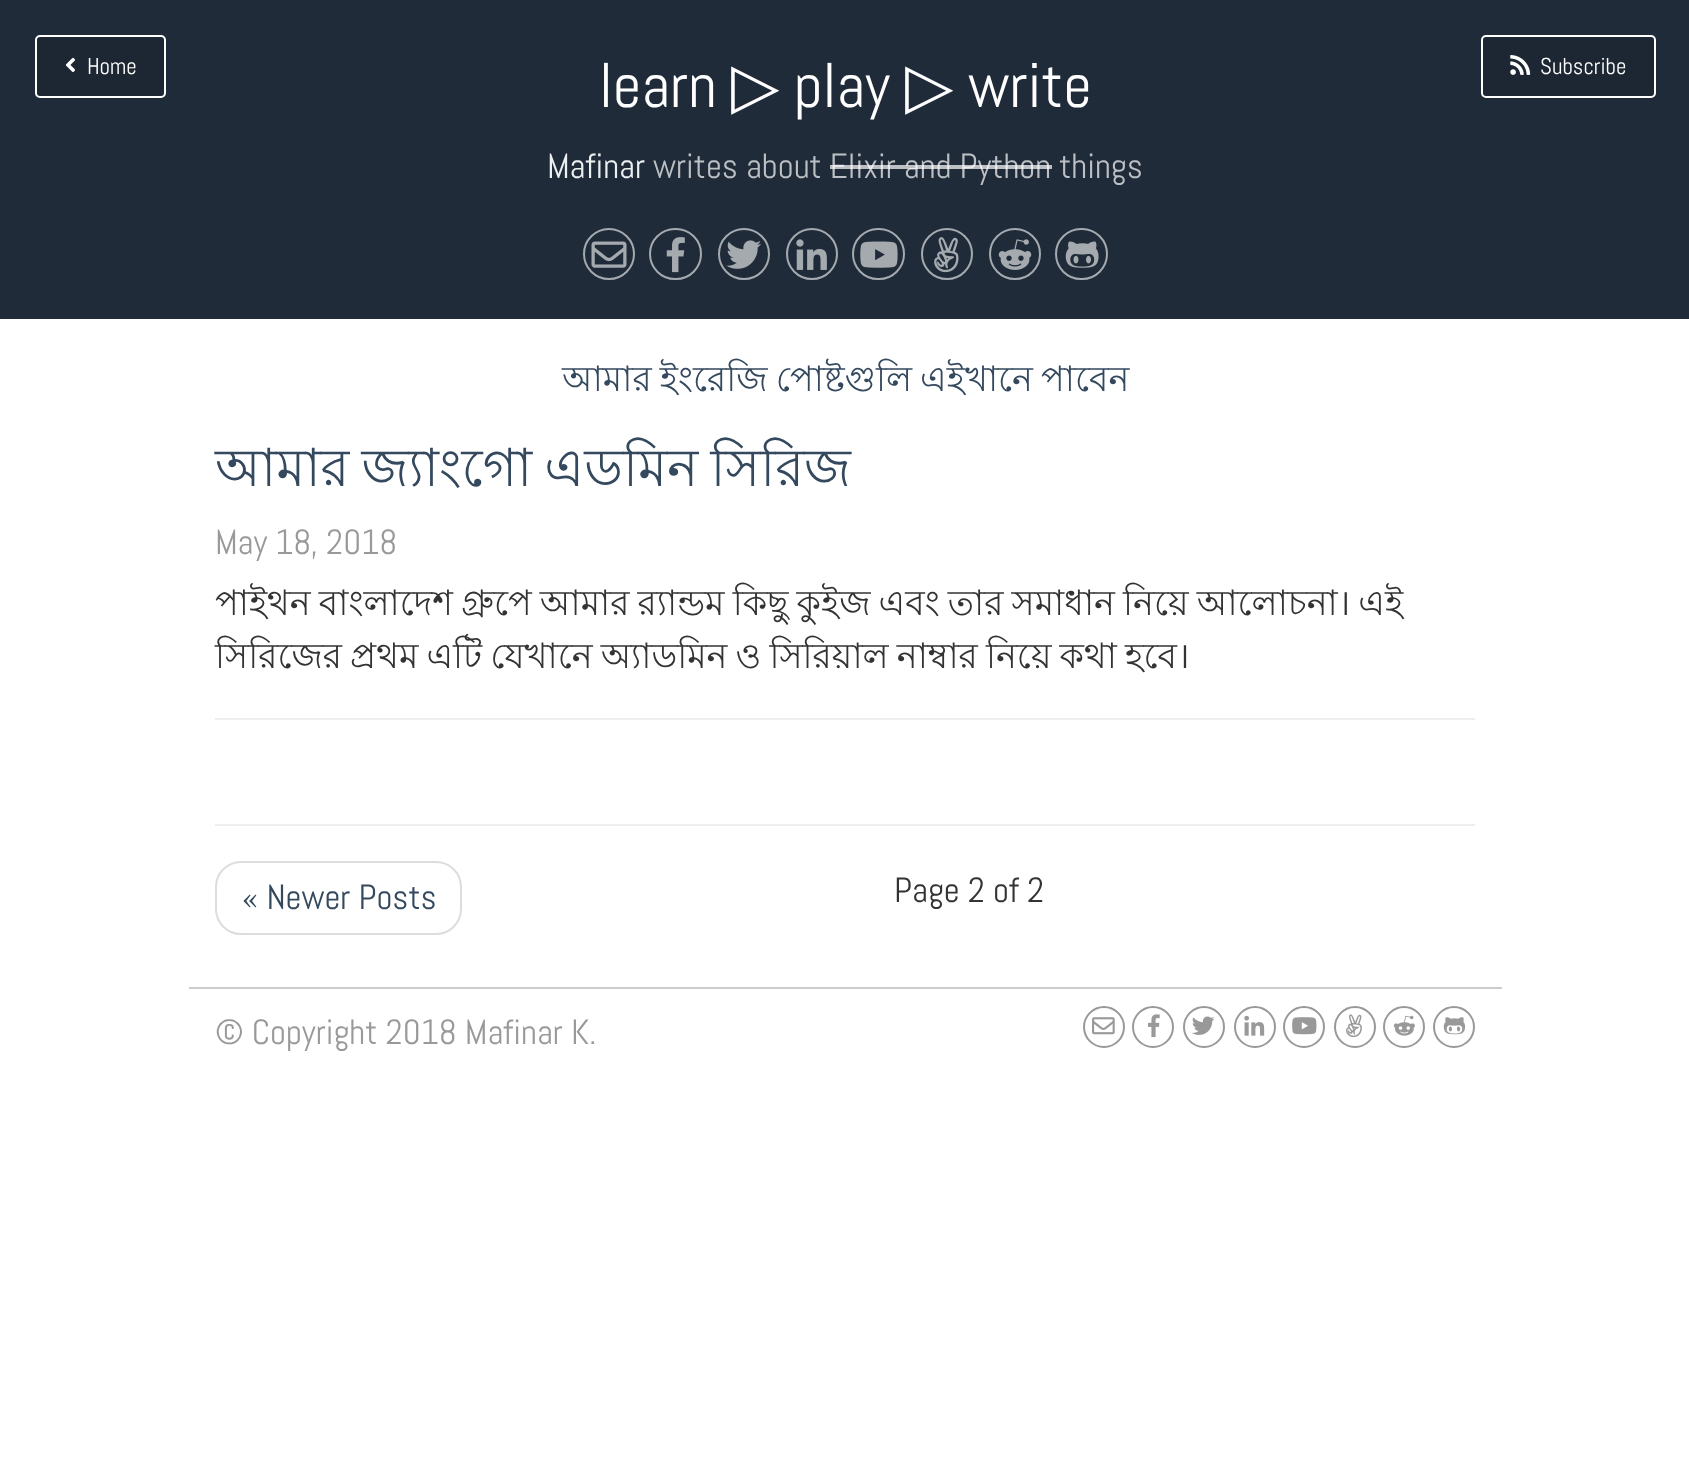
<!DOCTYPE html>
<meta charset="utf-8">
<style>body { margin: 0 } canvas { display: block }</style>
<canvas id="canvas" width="1689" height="1464"></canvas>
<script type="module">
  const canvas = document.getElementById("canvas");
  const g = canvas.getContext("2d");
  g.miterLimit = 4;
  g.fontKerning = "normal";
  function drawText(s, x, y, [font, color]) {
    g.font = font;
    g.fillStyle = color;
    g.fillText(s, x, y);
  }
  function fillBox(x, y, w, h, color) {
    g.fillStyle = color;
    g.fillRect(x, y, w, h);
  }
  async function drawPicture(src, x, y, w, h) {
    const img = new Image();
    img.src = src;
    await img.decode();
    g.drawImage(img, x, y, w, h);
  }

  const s1 = ["23px Abel", "#FFFFFF"];
  const s2 = ["63px Abel", "#FFFFFF"];
  const s3 = ["63px DejaVu Sans", "#FFFFFF"];
  const s4 = ["35px Abel", "#ECF0F1"];
  const s5 = ["35px Abel", "#BCBFC4"];
  const s6 = ["35px Lohit Bengali", "#34495E"];
  const s7 = ["52.5px Lohit Bengali", "#34495E"];
  const s8 = ["35px Abel", "#999999"];
  const s9 = ["35px Lohit Bengali", "#333333"];
  const s10 = ["35px Abel", "#34495E"];
  const s11 = ["35px Abel", "#333333"];

  fillBox(0, 0, 1689, 1464, "#FFFFFF");
  fillBox(0, 0, 1689, 319, "#1F2B39");
  g.fillStyle = "#1C2733";
  g.beginPath();
  g.roundRect(36, 36, 129, 61, 4);
  g.fill();
  g.strokeStyle = "#FFFFFF";
  g.lineWidth = 2;
  g.stroke();
  await drawPicture("pic1.png", 65, 57, 10, 15);
  drawText("Home", 87, 74, s1);
  drawText("learn", 599, 107, s2);
  drawText("▷", 731, 107, s3);
  drawText("play", 794, 107, s2);
  drawText("▷", 905, 107, s3);
  drawText("write", 968, 107, s2);
  g.fillStyle = "#1C2733";
  g.beginPath();
  g.roundRect(1482, 36, 173, 61, 4);
  g.fill();
  g.stroke();
  await drawPicture("pic2.png", 1510, 55, 21, 20);
  drawText("Subscribe", 1540, 74, s1);
  drawText("Mafinar", 547, 178, s4);
  drawText("writes about Elixir and Python things", 653, 178, s5);
  fillBox(830, 165, 222, 4, "rgba(255, 255, 255, 0.7)");
  g.beginPath();
  g.arc(609, 254, 25, 0, Math.PI * 2);
  g.strokeStyle = "#A5AAB0";
  g.stroke();
  await drawPicture("pic3.png", 591, 241, 36, 27);
  g.beginPath();
  g.roundRect(650, 229, 51, 50, 25);
  g.stroke();
  await drawPicture("pic4.png", 666, 237, 19, 36);
  g.beginPath();
  g.arc(744, 254, 25, 0, Math.PI * 2);
  g.stroke();
  await drawPicture("pic5.png", 726, 240, 35, 29);
  g.beginPath();
  g.arc(812, 254, 25, 0, Math.PI * 2);
  g.stroke();
  await drawPicture("pic6.png", 796, 239, 31, 31);
  g.beginPath();
  g.roundRect(853, 229, 51, 50, 25);
  g.stroke();
  await drawPicture("pic7.png", 860, 241, 38, 27);
  g.beginPath();
  g.arc(947, 254, 25, 0, Math.PI * 2);
  g.stroke();
  await drawPicture("pic8.png", 934, 237, 25, 36);
  g.beginPath();
  g.arc(1015, 254, 25, 0, Math.PI * 2);
  g.stroke();
  await drawPicture("pic9.png", 998, 239, 34, 31);
  g.beginPath();
  g.roundRect(1056, 229, 51, 50, 25);
  g.stroke();
  await drawPicture("pic10.png", 1065, 241, 34, 27);
  g.wordSpacing = "-1.6px";
  drawText("আমার ইংরেজি পোষ্টগুলি এইখানে পাবেন", 562, 391, s6);
  g.wordSpacing = "-2.5px";
  drawText("আমার জ্যাংগো এডমিন সিরিজ", 215, 486, s7);
  g.wordSpacing = "0px";
  drawText("May 18, 2018", 215, 554, s8);
  g.wordSpacing = "-1.6px";
  drawText("পাইথন বাংলাদেশ গ্রুপে আমার র‍্যান্ডম কিছু কুইজ এবং তার সমাধান নিয়ে আলোচনা। এই", 215, 615, s9);
  drawText("সিরিজের প্রথম এটি যেখানে অ্যাডমিন ও সিরিয়াল নাম্বার নিয়ে কথা হবে।", 215, 668, s9);
  fillBox(215, 718, 1260, 2, "#EEEEEE");
  fillBox(215, 824, 1260, 2, "#EEEEEE");
  g.beginPath();
  g.roundRect(216, 862, 245, 72, 25);
  g.strokeStyle = "#DDDDDD";
  g.stroke();
  g.wordSpacing = "0px";
  drawText("« Newer Posts", 242, 909, s10);
  drawText("Page 2 of 2", 894, 902, s11);
  fillBox(189, 987, 1313, 2, "#CCCCCC");
  drawText("© Copyright 2018 Mafinar K.", 215, 1044, s8);
  g.beginPath();
  g.arc(1104, 1027, 20, 0, Math.PI * 2);
  g.strokeStyle = "#999999";
  g.stroke();
  await drawPicture("pic11.png", 1092, 1017, 23, 18);
  g.beginPath();
  g.arc(1153, 1027, 20, 0, Math.PI * 2);
  g.stroke();
  await drawPicture("pic12.png", 1148, 1014, 12, 24);
  g.beginPath();
  g.arc(1204, 1027, 20, 0, Math.PI * 2);
  g.stroke();
  await drawPicture("pic13.png", 1192, 1016, 23, 19);
  g.beginPath();
  g.arc(1255, 1027, 20, 0, Math.PI * 2);
  g.stroke();
  await drawPicture("pic14.png", 1244, 1015, 21, 21);
  g.beginPath();
  g.arc(1304, 1027, 20, 0, Math.PI * 2);
  g.stroke();
  await drawPicture("pic15.png", 1292, 1017, 25, 18);
  g.beginPath();
  g.arc(1355, 1027, 20, 0, Math.PI * 2);
  g.stroke();
  await drawPicture("pic16.png", 1346, 1014, 16, 24);
  g.beginPath();
  g.arc(1404, 1027, 20, 0, Math.PI * 2);
  g.stroke();
  await drawPicture("pic17.png", 1393, 1015, 22, 21);
  g.beginPath();
  g.arc(1454, 1027, 20, 0, Math.PI * 2);
  g.stroke();
  await drawPicture("pic18.png", 1443, 1017, 23, 18);
</script>
